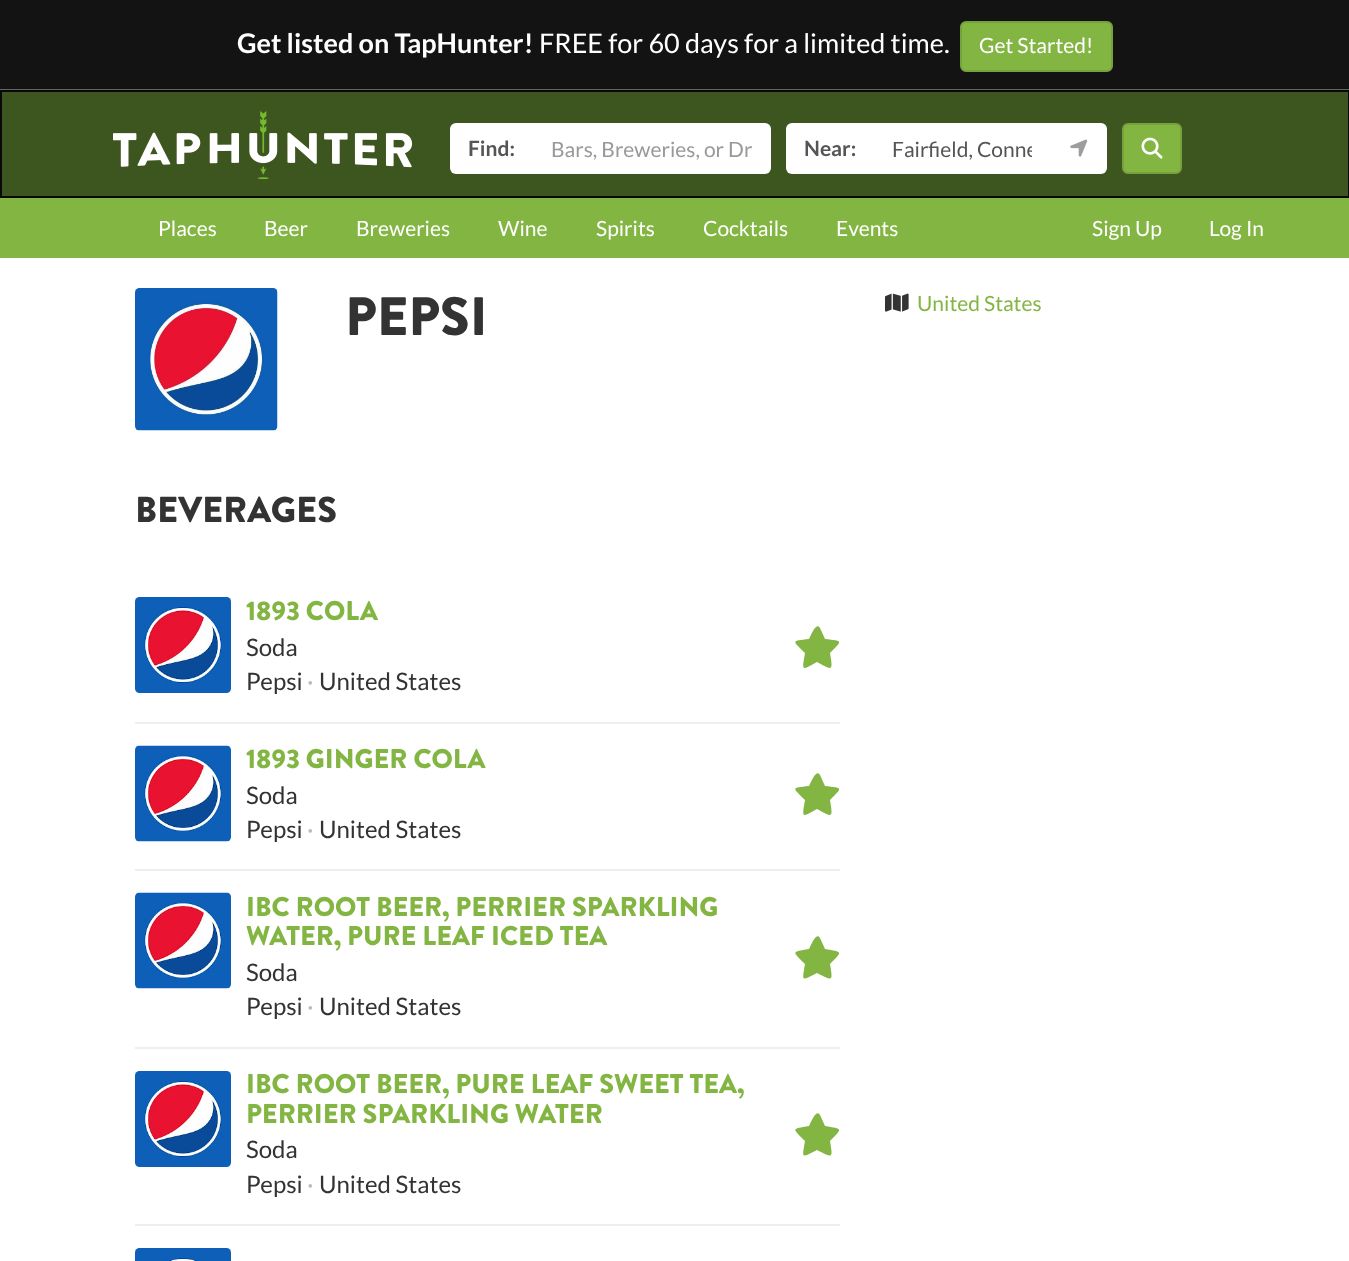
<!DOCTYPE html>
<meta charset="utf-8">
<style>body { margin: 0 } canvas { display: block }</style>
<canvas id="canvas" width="1349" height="1261"></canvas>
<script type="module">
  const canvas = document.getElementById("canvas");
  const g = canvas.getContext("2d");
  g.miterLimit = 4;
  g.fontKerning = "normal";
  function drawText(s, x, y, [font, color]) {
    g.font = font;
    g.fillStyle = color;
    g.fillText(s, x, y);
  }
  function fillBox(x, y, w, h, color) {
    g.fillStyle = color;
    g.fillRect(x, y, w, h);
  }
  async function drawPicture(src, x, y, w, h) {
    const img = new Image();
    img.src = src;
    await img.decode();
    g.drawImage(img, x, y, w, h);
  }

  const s1 = ["bold 27px Lato", "#FFFFFF"];
  const s2 = ["27px Lato", "#FFFFFF"];
  const s3 = ["21px Lato", "#FFFFFF"];
  const s4 = ["bold 21px Lato", "#555555"];
  const s5 = ["21px Lato", "#999999"];
  const s6 = ["21px Lato", "#555555"];
  const s7 = ["900 54px Brandon Grotesque", "#333333"];
  const s8 = ["21px Lato", "#83B543"];
  const s9 = ["900 36px Brandon Grotesque", "#333333"];
  const s10 = ["900 27px Brandon Grotesque", "#83B543"];
  const s11 = ["24px Lato", "#333333"];
  const s12 = ["24px Lato", "#BBBBBB"];

  fillBox(0, 0, 1349, 1261, "#FFFFFF");
  fillBox(0, 0, 1349, 89, "#131313");
  fillBox(0, 89, 1349, 1, "#646464");
  drawText("Get listed on TapHunter!", 237, 53, s1);
  drawText("FREE for 60 days for a limited time.", 539, 53, s2);
  g.fillStyle = "#83B543";
  g.beginPath();
  g.roundRect(961, 22, 151, 49, 5);
  g.fill();
  g.strokeStyle = "#76A23C";
  g.lineWidth = 2;
  g.stroke();
  drawText("Get Started!", 979, 53, s3);
  g.fillStyle = "#3D551E";
  g.beginPath();
  g.rect(1, 91, 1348, 106);
  g.fill();
  g.strokeStyle = "#090909";
  g.stroke();
  await drawPicture("pic1.png", 113, 111, 300, 69);
  g.fillStyle = "#FFFFFF";
  g.beginPath();
  g.roundRect(450, 123, 83, 51, [6, 0, 0, 6]);
  g.fill();
  drawText("Find:", 468, 156, s4);
  g.fillStyle = "#FFFFFF";
  g.beginPath();
  g.roundRect(533, 123, 238, 51, [0, 6, 6, 0]);
  g.fill();
  drawText("Bars, Breweries, or Dr", 551, 157, s5);
  g.fillStyle = "#FFFFFF";
  g.beginPath();
  g.roundRect(786, 123, 89, 51, [6, 0, 0, 6]);
  g.fill();
  drawText("Near:", 804, 156, s4);
  fillBox(875, 123, 175, 51, "#FFFFFF");
  g.save();
  g.beginPath();
  g.rect(893, 137, 139, 25);
  g.clip();
  drawText("Fairfield, Conne", 892, 157, s6);
  g.restore();
  g.beginPath();
  g.roundRect(1050, 123, 57, 51, [0, 6, 6, 0]);
  g.fill();
  await drawPicture("pic2.png", 1070, 139, 18, 18);
  g.fillStyle = "#83B543";
  g.beginPath();
  g.roundRect(1123, 124, 58, 49, 5);
  g.fill();
  g.strokeStyle = "#76A23C";
  g.stroke();
  await drawPicture("pic3.png", 1141, 137, 22, 22);
  fillBox(0, 198, 1349, 60, "#83B543");
  drawText("Places", 158, 236, s3);
  drawText("Beer", 264, 236, s3);
  drawText("Breweries", 356, 236, s3);
  drawText("Wine", 498, 236, s3);
  drawText("Spirits", 596, 236, s3);
  drawText("Cocktails", 703, 236, s3);
  drawText("Events", 836, 236, s3);
  drawText("Sign Up", 1092, 236, s3);
  drawText("Log In", 1209, 236, s3);
  await drawPicture("pic4.png", 135, 288, 143, 143);
  drawText("PEPSI", 345, 335, s7);
  await drawPicture("pic5.png", 885, 293, 24, 19);
  drawText("United States", 917, 311, s8);
  drawText("BEVERAGES", 135, 522, s9);
  fillBox(135, 722, 705, 2, "#EEEEEE");
  await drawPicture("pic6.png", 135, 597, 96, 96);
  drawText("1893 COLA", 246, 620, s10);
  drawText("Soda", 246, 656, s11);
  drawText("Pepsi", 246, 690, s11);
  drawText("·", 307, 690, s12);
  drawText("United States", 319, 690, s11);
  g.fillStyle = "#83B543";
  g.beginPath();
  g.moveTo(820, 628);
  g.bezierCurveTo(816, 621, 810, 638, 809, 639);
  g.bezierCurveTo(791, 641, 792, 640, 805, 653);
  g.bezierCurveTo(802, 671, 801, 671, 817, 662);
  g.bezierCurveTo(833, 671, 833, 671, 830, 653);
  g.bezierCurveTo(843, 640, 843, 641, 825, 639);
  g.closePath();
  g.fill();
  fillBox(135, 869, 705, 2, "#EEEEEE");
  await drawPicture("pic7.png", 135, 745, 96, 97);
  drawText("1893 GINGER COLA", 246, 768, s10);
  drawText("Soda", 246, 804, s11);
  drawText("Pepsi", 246, 838, s11);
  drawText("·", 307, 838, s12);
  drawText("United States", 319, 838, s11);
  g.fillStyle = "#83B543";
  g.beginPath();
  g.moveTo(820, 775);
  g.bezierCurveTo(816, 768, 810, 785, 809, 786);
  g.bezierCurveTo(791, 788, 792, 787, 805, 800);
  g.bezierCurveTo(802, 818, 801, 818, 817, 809);
  g.bezierCurveTo(833, 818, 833, 818, 830, 800);
  g.bezierCurveTo(843, 787, 843, 788, 825, 786);
  g.closePath();
  g.fill();
  fillBox(135, 1047, 705, 2, "#EEEEEE");
  await drawPicture("pic7.png", 135, 892, 96, 97);
  drawText("IBC ROOT BEER, PERRIER SPARKLING", 246, 916, s10);
  drawText("WATER, PURE LEAF ICED TEA", 246, 945, s10);
  drawText("Soda", 246, 981, s11);
  drawText("Pepsi", 246, 1015, s11);
  drawText("·", 307, 1015, s12);
  drawText("United States", 319, 1015, s11);
  g.fillStyle = "#83B543";
  g.beginPath();
  g.moveTo(820, 938);
  g.bezierCurveTo(816, 931, 810, 948, 809, 949);
  g.bezierCurveTo(791, 952, 792, 951, 805, 964);
  g.bezierCurveTo(802, 982, 801, 981, 817, 973);
  g.bezierCurveTo(833, 981, 833, 982, 830, 964);
  g.bezierCurveTo(843, 951, 843, 952, 825, 949);
  g.closePath();
  g.fill();
  fillBox(135, 1224, 705, 2, "#EEEEEE");
  await drawPicture("pic6.png", 135, 1071, 96, 96);
  drawText("IBC ROOT BEER, PURE LEAF SWEET TEA,", 246, 1093, s10);
  drawText("PERRIER SPARKLING WATER", 246, 1123, s10);
  drawText("Soda", 246, 1158, s11);
  drawText("Pepsi", 246, 1193, s11);
  drawText("·", 307, 1193, s12);
  drawText("United States", 319, 1193, s11);
  g.fillStyle = "#83B543";
  g.beginPath();
  g.moveTo(820, 1115);
  g.bezierCurveTo(816, 1108, 810, 1125, 809, 1126);
  g.bezierCurveTo(791, 1129, 792, 1128, 805, 1141);
  g.bezierCurveTo(802, 1159, 801, 1158, 817, 1150);
  g.bezierCurveTo(833, 1158, 833, 1159, 830, 1141);
  g.bezierCurveTo(843, 1128, 843, 1129, 825, 1126);
  g.closePath();
  g.fill();
  await drawPicture("pic8.png", 135, 1248, 96, 13);
</script>
